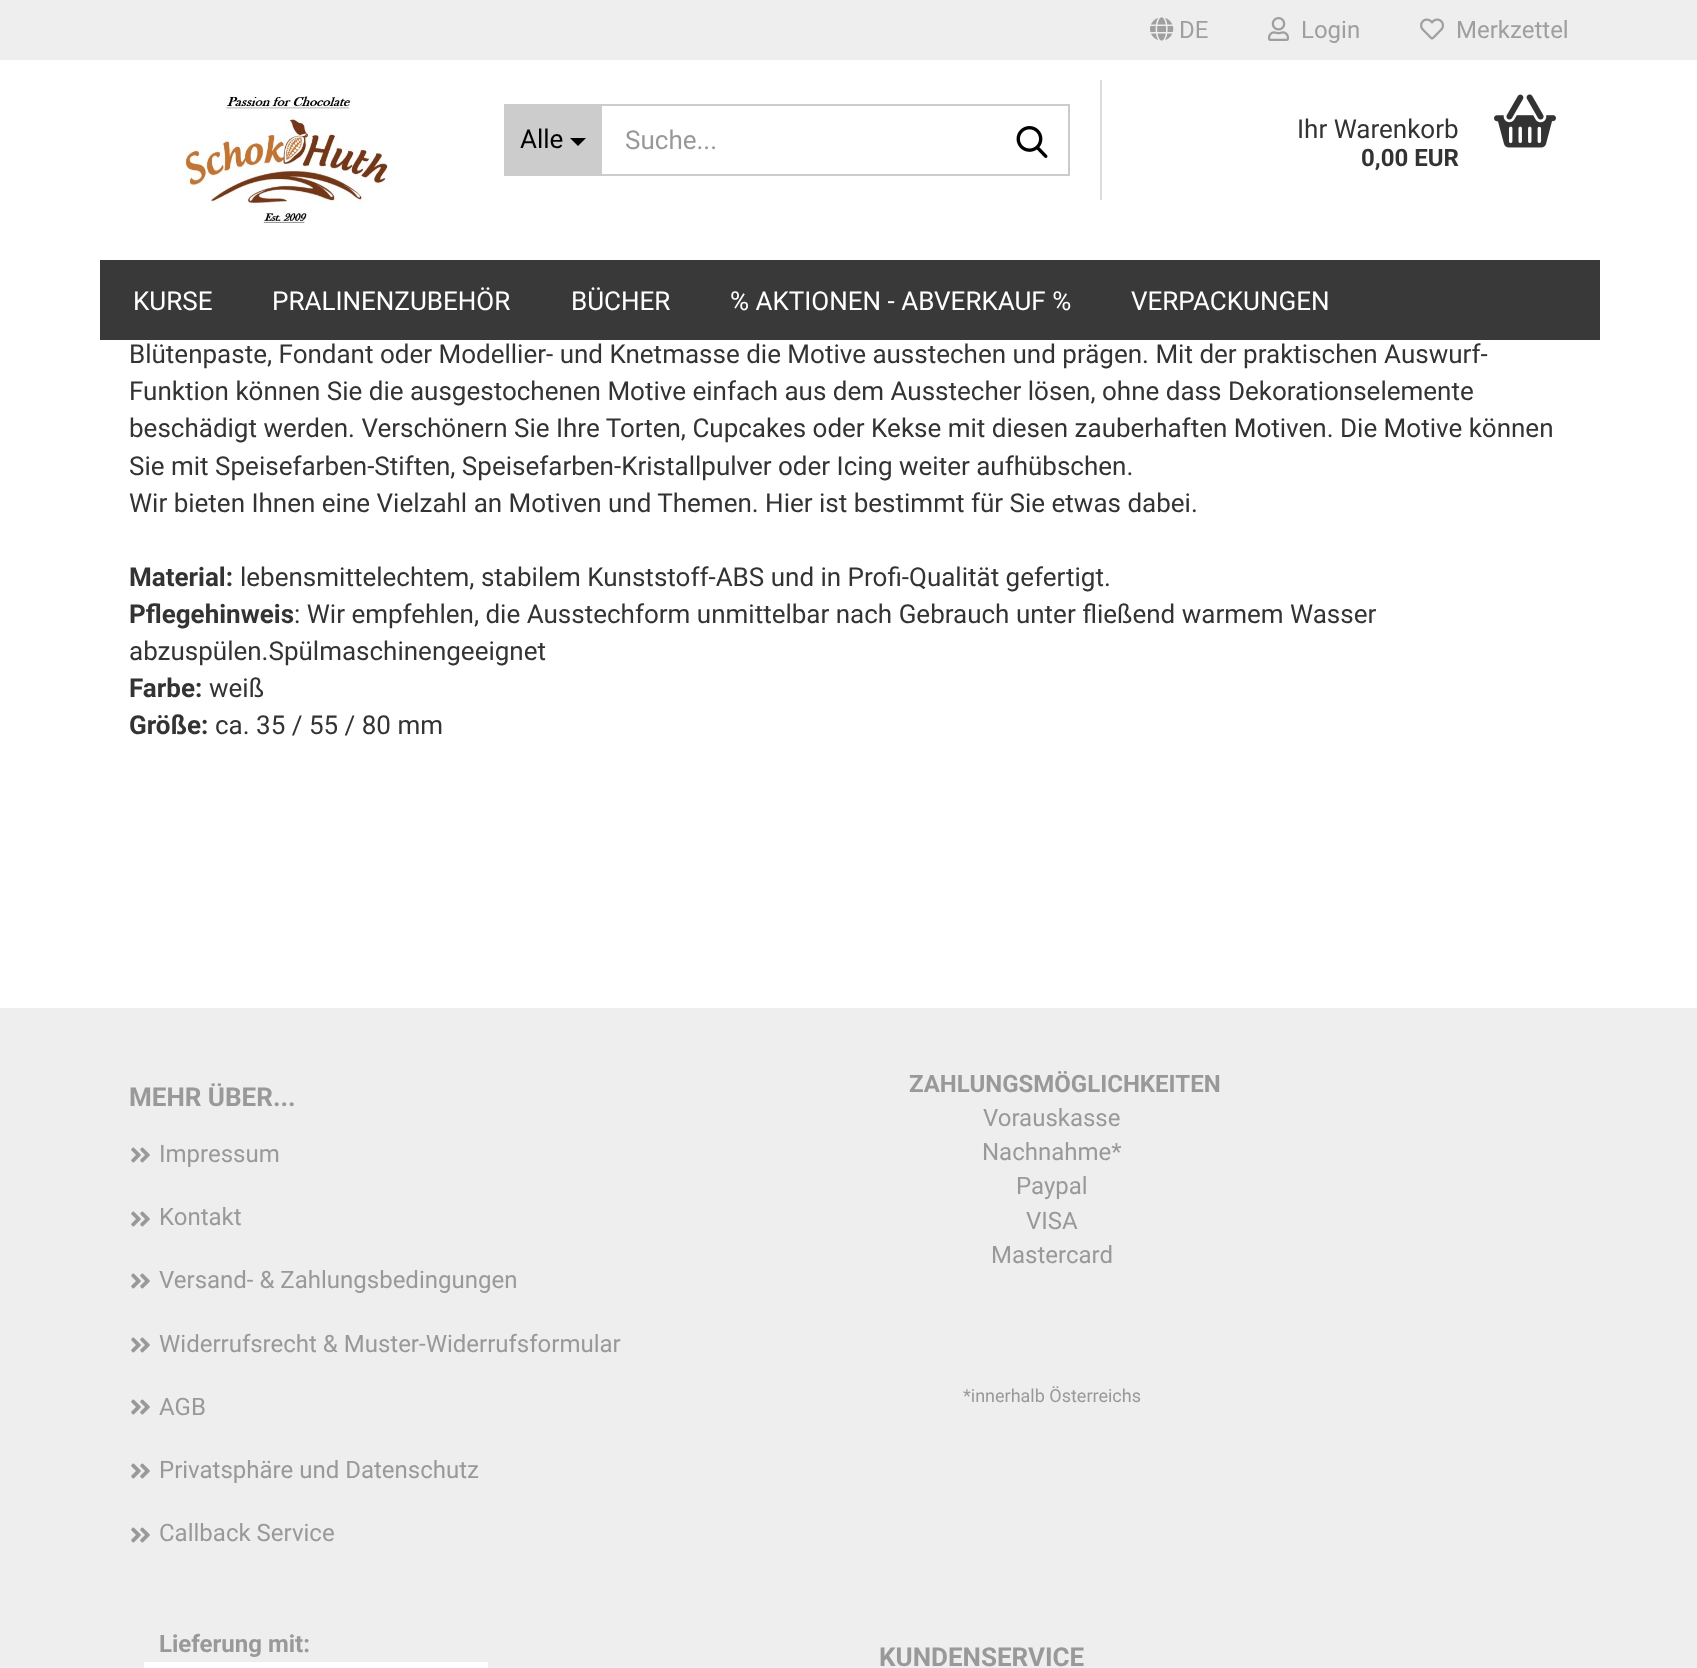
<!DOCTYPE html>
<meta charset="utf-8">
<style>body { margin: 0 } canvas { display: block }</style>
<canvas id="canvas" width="1697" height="1668"></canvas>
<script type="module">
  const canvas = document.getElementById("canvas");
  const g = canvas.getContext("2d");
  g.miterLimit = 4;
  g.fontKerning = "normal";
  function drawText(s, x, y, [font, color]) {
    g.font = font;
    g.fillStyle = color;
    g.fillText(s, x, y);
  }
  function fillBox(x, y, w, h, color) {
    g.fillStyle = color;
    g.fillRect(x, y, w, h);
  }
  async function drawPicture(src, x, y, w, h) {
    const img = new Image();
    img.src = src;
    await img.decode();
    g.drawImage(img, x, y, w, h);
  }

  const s1 = ["24px Roboto", "#9F9F9F"];
  const s2 = ["26px Roboto", "#000000"];
  const s3 = ["26px Roboto", "#999999"];
  const s4 = ["26px Roboto", "#333333"];
  const s5 = ["bold 24px Roboto", "#333333"];
  const s6 = ["26px Roboto", "#FFFFFF"];
  const s7 = ["bold 26px Roboto", "#333333"];
  const s8 = ["bold 26px Roboto", "#999999"];
  const s9 = ["24px Roboto", "#999999"];
  const s10 = ["bold 24px Roboto", "#999999"];
  const s11 = ["18px Roboto", "#999999"];

  fillBox(0, 0, 1697, 1668, "#FFFFFF");
  fillBox(0, 0, 1697, 60, "#EEEEEE");
  await drawPicture("pic1.png", 1150, 17, 24, 24);
  drawText("DE", 1179, 38, s1);
  await drawPicture("pic2.png", 1268, 17, 21, 24);
  drawText("Login", 1301, 38, s1);
  await drawPicture("pic3.png", 1420, 18, 24, 22);
  drawText("Merkzettel", 1456, 38, s1);
  await drawPicture("pic4.png", 184, 96, 206, 127);
  fillBox(504, 104, 98, 72, "#CCCCCC");
  drawText("Alle", 520, 148, s2);
  g.beginPath();
  g.moveTo(570, 138);
  g.lineTo(586, 138);
  g.lineTo(578, 146);
  g.closePath();
  g.fill();
  fillBox(602, 104, 468, 2, "#CCCCCC");
  fillBox(1068, 104, 2, 72, "#CCCCCC");
  fillBox(602, 174, 468, 2, "#CCCCCC");
  drawText("Suche...", 625, 149, s3);
  await drawPicture("pic5.png", 1016, 126, 32, 32);
  fillBox(1100, 80, 2, 120, "#DDDDDD");
  drawText("Ihr Warenkorb", 1297, 138, s4);
  drawText("0,00 EUR", 1361, 166, s5);
  await drawPicture("pic6.png", 1494, 94, 62, 54);
  fillBox(100, 260, 1500, 80, "#393939");
  drawText("KURSE", 133, 310, s6);
  drawText("PRALINENZUBEHÖR", 272, 310, s6);
  drawText("BÜCHER", 571, 310, s6);
  drawText("% AKTIONEN - ABVERKAUF %", 730, 310, s6);
  drawText("VERPACKUNGEN", 1131, 310, s6);
  drawText("Blütenpaste, Fondant oder Modellier- und Knetmasse die Motive ausstechen und prägen. Mit der praktischen Auswurf-", 129, 363, s4);
  drawText("Funktion können Sie die ausgestochenen Motive einfach aus dem Ausstecher lösen, ohne dass Dekorationselemente", 129, 400, s4);
  drawText("beschädigt werden. Verschönern Sie Ihre Torten, Cupcakes oder Kekse mit diesen zauberhaften Motiven. Die Motive können", 129, 437, s4);
  drawText("Sie mit Speisefarben-Stiften, Speisefarben-Kristallpulver oder Icing weiter aufhübschen.", 129, 475, s4);
  drawText("Wir bieten Ihnen eine Vielzahl an Motiven und Themen. Hier ist bestimmt für Sie etwas dabei.", 129, 512, s4);
  drawText("Material:", 129, 586, s7);
  drawText("lebensmittelechtem, stabilem Kunststoff-ABS und in Profi-Qualität gefertigt.", 240, 586, s4);
  drawText("Pflegehinweis", 129, 623, s7);
  drawText(": Wir empfehlen, die Ausstechform unmittelbar nach Gebrauch unter fließend warmem Wasser", 294, 623, s4);
  drawText("abzuspülen.Spülmaschinengeeignet", 129, 660, s4);
  drawText("Farbe:", 129, 697, s7);
  drawText("weiß", 209, 697, s4);
  drawText("Größe:", 129, 734, s7);
  drawText("ca. 35 / 55 / 80 mm", 215, 734, s4);
  fillBox(0, 1008, 1697, 660, "#EEEEEE");
  drawText("MEHR ÜBER...", 129, 1106, s8);
  await drawPicture("pic7.png", 131, 1147, 19, 16);
  drawText("Impressum", 159, 1162, s9);
  await drawPicture("pic7.png", 131, 1211, 19, 16);
  drawText("Kontakt", 159, 1225, s9);
  await drawPicture("pic7.png", 131, 1273, 19, 16);
  drawText("Versand- & Zahlungsbedingungen", 159, 1288, s9);
  await drawPicture("pic7.png", 131, 1337, 19, 16);
  drawText("Widerrufsrecht & Muster-Widerrufsformular", 159, 1352, s9);
  await drawPicture("pic7.png", 131, 1399, 19, 16);
  drawText("AGB", 159, 1415, s9);
  await drawPicture("pic7.png", 131, 1463, 19, 16);
  drawText("Privatsphäre und Datenschutz", 159, 1478, s9);
  await drawPicture("pic7.png", 131, 1527, 19, 16);
  drawText("Callback Service", 159, 1541, s9);
  drawText("ZAHLUNGSMÖGLICHKEITEN", 909, 1092, s10);
  drawText("Vorauskasse", 983, 1126, s9);
  drawText("Nachnahme*", 982, 1160, s9);
  drawText("Paypal", 1016, 1194, s9);
  drawText("VISA", 1026, 1229, s9);
  drawText("Mastercard", 991, 1263, s9);
  drawText("*innerhalb Österreichs", 963, 1402, s11);
  drawText("Lieferung mit:", 159, 1652, s10);
  fillBox(144, 1662, 344, 6, "#FFFFFF");
  drawText("KUNDENSERVICE", 879, 1666, s8);
</script>
